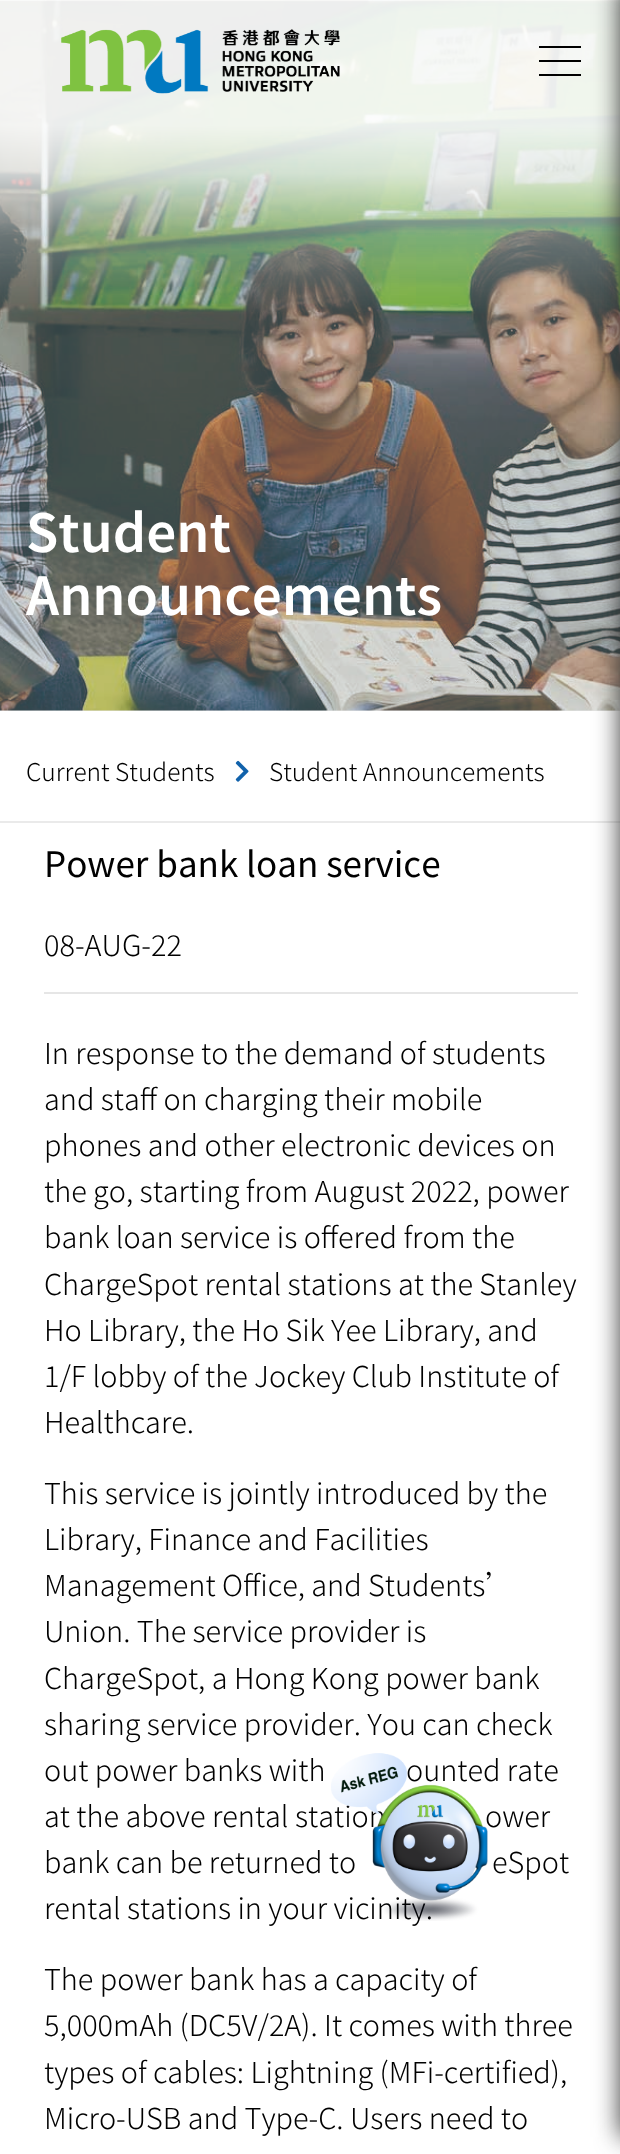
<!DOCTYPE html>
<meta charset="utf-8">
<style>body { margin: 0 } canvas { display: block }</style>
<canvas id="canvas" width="620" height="2154"></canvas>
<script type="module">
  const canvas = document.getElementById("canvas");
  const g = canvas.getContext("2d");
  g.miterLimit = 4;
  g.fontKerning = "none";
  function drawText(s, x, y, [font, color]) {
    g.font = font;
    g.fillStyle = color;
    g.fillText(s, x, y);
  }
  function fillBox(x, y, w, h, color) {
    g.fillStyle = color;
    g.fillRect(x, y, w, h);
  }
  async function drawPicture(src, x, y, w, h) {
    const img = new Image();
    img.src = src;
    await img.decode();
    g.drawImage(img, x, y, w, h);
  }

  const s1 = ["600 52.5px Noto Sans TC", "#FFFFFF"];
  const s2 = ["300 24.5px Noto Sans TC", "#000000"];
  const s3 = ["35px Noto Sans TC", "#000000"];
  const s4 = ["300 28.9px Noto Sans TC", "#000000"];

  fillBox(0, 0, 620, 2154, "#FFFFFF");
  fillBox(0, 710, 620, 1, "#E7E7E7");
  await drawPicture("pic2.png", 0, 0, 620, 711);
  await drawPicture("pic1.png", 61, 29, 279, 65);
  fillBox(539, 60, 42, 2, "#000000");
  fillBox(539, 46, 42, 2, "#000000");
  fillBox(539, 74, 42, 2, "#000000");
  fillBox(0, 821, 620, 2, "#EAEAEA");
  g.fillStyle = "#2D2D2D";
  g.filter = "blur(13px)";
  g.beginPath();
  g.rect(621, -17, 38, 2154);
  g.fill();
  g.filter = "none";
  drawText("Student", 26, 552, s1);
  drawText("Announcements", 26, 615, s1);
  drawText("Current Students", 26, 781, s2);
  await drawPicture("pic3.png", 235, 760, 14, 22);
  drawText("Student Announcements", 269, 781, s2);
  drawText("Power bank loan service", 44, 877, s3);
  drawText("08-AUG-22", 44, 956, s4);
  fillBox(44, 992, 534, 2, "#E6E6E6");
  drawText("In response to the demand of students", 44, 1064, s4);
  drawText("and staff on charging their mobile", 44, 1110, s4);
  drawText("phones and other electronic devices on", 44, 1156, s4);
  drawText("the go, starting from August 2022, power", 44, 1202, s4);
  drawText("bank loan service is offered from the", 44, 1248, s4);
  drawText("ChargeSpot rental stations at the Stanley", 44, 1295, s4);
  drawText("Ho Library, the Ho Sik Yee Library, and", 44, 1341, s4);
  drawText("1/F lobby of the Jockey Club Institute of", 44, 1387, s4);
  drawText("Healthcare.", 44, 1433, s4);
  drawText("This service is jointly introduced by the", 44, 1504, s4);
  drawText("Library, Finance and Facilities", 44, 1550, s4);
  drawText("Management Office, and Students’", 44, 1596, s4);
  drawText("Union. The service provider is", 44, 1642, s4);
  drawText("ChargeSpot, a Hong Kong power bank", 44, 1689, s4);
  drawText("sharing service provider. You can check", 44, 1735, s4);
  drawText("out power banks with", 44, 1781, s4);
  drawText("ounted rate", 406, 1781, s4);
  drawText("at the above rental station", 44, 1827, s4);
  drawText("ower", 485, 1827, s4);
  drawText("bank can be returned to", 44, 1873, s4);
  drawText("eSpot", 492, 1873, s4);
  drawText("rental stations in your vicinity.", 44, 1919, s4);
  drawText("The power bank has a capacity of", 44, 1990, s4);
  drawText("5,000mAh (DC5V/2A). It comes with three", 44, 2036, s4);
  drawText("types of cables: Lightning (MFi-certified),", 44, 2083, s4);
  drawText("Micro-USB and Type-C. Users need to", 44, 2129, s4);
  await drawPicture("pic4.png", 331, 1753, 157, 168);
</script>
